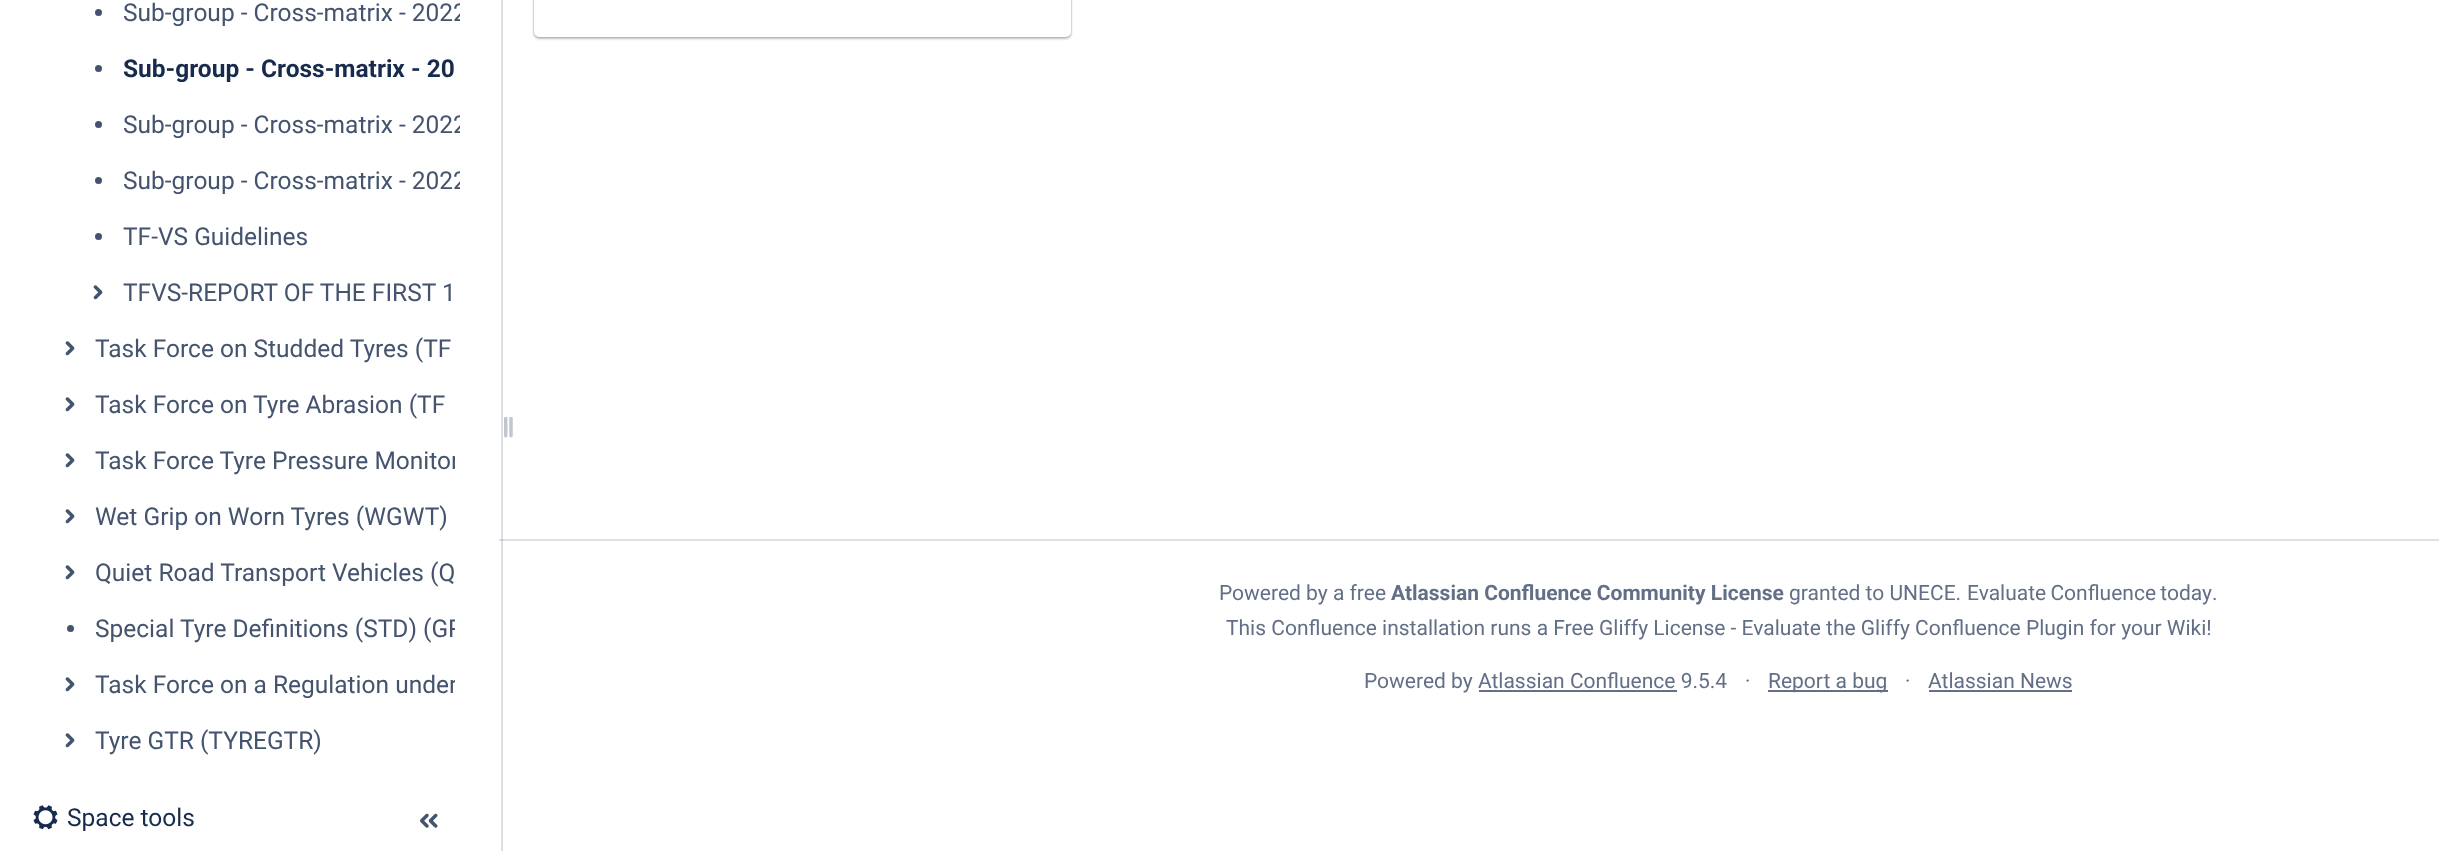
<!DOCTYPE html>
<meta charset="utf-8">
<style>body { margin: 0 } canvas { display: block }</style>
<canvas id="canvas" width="2439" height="851"></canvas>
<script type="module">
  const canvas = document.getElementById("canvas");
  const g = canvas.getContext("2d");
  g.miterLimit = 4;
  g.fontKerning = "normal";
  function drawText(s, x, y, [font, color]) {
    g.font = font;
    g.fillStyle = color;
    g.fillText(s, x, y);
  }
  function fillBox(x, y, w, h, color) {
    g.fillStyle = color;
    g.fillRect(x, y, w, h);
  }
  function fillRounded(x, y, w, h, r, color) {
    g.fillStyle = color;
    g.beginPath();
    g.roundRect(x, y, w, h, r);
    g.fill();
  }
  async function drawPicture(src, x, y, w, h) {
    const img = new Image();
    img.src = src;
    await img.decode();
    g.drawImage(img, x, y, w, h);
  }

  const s1 = ["24.5px Roboto", "#44546F"];
  const s2 = ["bold 24.5px Roboto", "#172B4D"];
  const s3 = ["24.5px Roboto", "#172B4D"];
  const s4 = ["21px Roboto", "#626F86"];
  const s5 = ["bold 21px Roboto", "#626F86"];

  fillBox(0, 0, 2439, 851, "#FFFFFF");
  fillBox(501, 0, 2, 851, "#DDDFE5");
  g.fillStyle = "#44546F";
  g.beginPath();
  g.arc(98.5, 12.5, 3.5, 0, Math.PI * 2);
  g.fill();
  g.save();
  g.beginPath();
  g.rect(119, 0, 341, 33);
  g.clip();
  drawText("Sub-group - Cross-matrix - 2022", 123, 21, s1);
  g.restore();
  g.beginPath();
  g.arc(98.5, 68.5, 3.5, 0, Math.PI * 2);
  g.fill();
  drawText("Sub-group - Cross-matrix - 20", 123, 77, s2);
  g.fillStyle = "#44546F";
  g.beginPath();
  g.arc(98.5, 124.5, 3.5, 0, Math.PI * 2);
  g.fill();
  g.save();
  g.beginPath();
  g.rect(119, 103, 341, 42);
  g.clip();
  drawText("Sub-group - Cross-matrix - 2022", 123, 133, s1);
  g.restore();
  g.beginPath();
  g.arc(98.5, 180.5, 3.5, 0, Math.PI * 2);
  g.fill();
  g.save();
  g.beginPath();
  g.rect(119, 159, 341, 42);
  g.clip();
  drawText("Sub-group - Cross-matrix - 2022", 123, 189, s1);
  g.restore();
  g.beginPath();
  g.arc(98.5, 236.5, 3.5, 0, Math.PI * 2);
  g.fill();
  drawText("TF-VS Guidelines", 123, 245, s1);
  await drawPicture("pic1.png", 93, 285, 10, 15);
  drawText("TFVS-REPORT OF THE FIRST 1", 123, 301, s1);
  await drawPicture("pic1.png", 65, 341, 10, 15);
  drawText("Task Force on Studded Tyres (TF", 95, 357, s1);
  await drawPicture("pic1.png", 65, 397, 10, 15);
  drawText("Task Force on Tyre Abrasion (TF", 95, 413, s1);
  await drawPicture("pic1.png", 65, 453, 10, 15);
  g.save();
  g.beginPath();
  g.rect(91, 439, 364, 42);
  g.clip();
  drawText("Task Force Tyre Pressure Monitor", 95, 469, s1);
  g.restore();
  await drawPicture("pic1.png", 65, 509, 10, 15);
  drawText("Wet Grip on Worn Tyres (WGWT)", 95, 525, s1);
  await drawPicture("pic1.png", 65, 565, 10, 15);
  drawText("Quiet Road Transport Vehicles (Q", 95, 581, s1);
  g.beginPath();
  g.arc(70.5, 628.5, 3.5, 0, Math.PI * 2);
  g.fill();
  g.save();
  g.beginPath();
  g.rect(91, 607, 364, 42);
  g.clip();
  drawText("Special Tyre Definitions (STD) (GR", 95, 637, s1);
  g.restore();
  await drawPicture("pic1.png", 65, 677, 10, 15);
  g.save();
  g.beginPath();
  g.rect(91, 663, 364, 42);
  g.clip();
  drawText("Task Force on a Regulation under", 95, 693, s1);
  g.restore();
  await drawPicture("pic1.png", 65, 733, 10, 15);
  drawText("Tyre GTR (TYREGTR)", 95, 749, s1);
  await drawPicture("pic2.png", 504, 417, 9, 21);
  await drawPicture("pic3.png", 33, 805, 25, 25);
  drawText("Space tools", 67, 826, s3);
  await drawPicture("pic4.png", 420, 813, 18, 15);
  fillBox(499, 539, 1940, 2, "#DDE0E5");
  fillBox(501, 539, 2, 2, "#BFC5CE");
  g.fillStyle = "rgba(9, 30, 66, 0.31)";
  g.filter = "blur(1px)";
  g.beginPath();
  g.roundRect(534, -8, 537, 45, 5);
  g.fill();
  g.filter = "none";
  g.fillStyle = "rgba(9, 30, 66, 0.25)";
  g.filter = "blur(1px)";
  g.beginPath();
  g.roundRect(534, -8, 537, 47, 5);
  g.fill();
  g.filter = "none";
  fillRounded(534, -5, 537, 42, 5, "#FFFFFF");
  drawText("Powered by a free", 1219, 600, s4);
  drawText("Atlassian Confluence Community License", 1391, 600, s5);
  drawText("granted to UNECE.", 1789, 600, s4);
  g.wordSpacing = "-1px";
  drawText("Evaluate Confluence today", 1967, 600, s4);
  g.wordSpacing = "0px";
  drawText(".", 2212, 600, s4);
  drawText("This Confluence installation runs a Free Gliffy License - Evaluate the Gliffy Confluence Plugin for your Wiki!", 1226, 635, s4);
  drawText("Powered by Atlassian Confluence 9.5.4", 1364, 688, s4);
  drawText("·", 1745, 688, s4);
  fillBox(1479, 690, 198, 2, "#626F86");
  fillBox(1768, 690, 120, 2, "#626F86");
  drawText("Report a bug", 1768, 688, s4);
  drawText("·", 1905, 688, s4);
  drawText("Atlassian News", 1928, 688, s4);
  fillBox(1929, 690, 143, 2, "#626F86");
</script>
